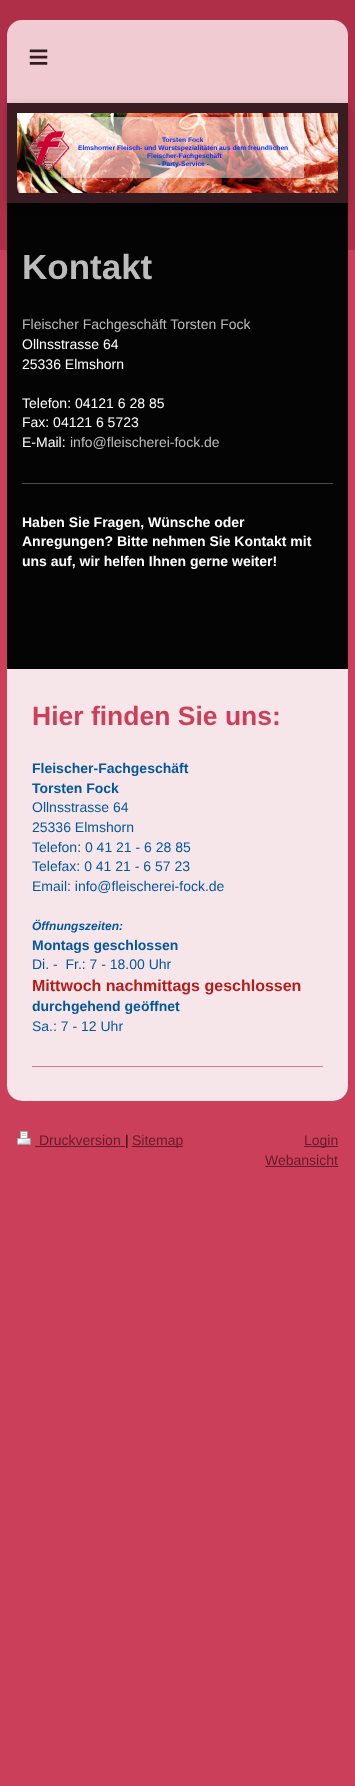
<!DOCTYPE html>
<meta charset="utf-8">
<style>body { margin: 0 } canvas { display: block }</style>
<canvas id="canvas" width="355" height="1786"></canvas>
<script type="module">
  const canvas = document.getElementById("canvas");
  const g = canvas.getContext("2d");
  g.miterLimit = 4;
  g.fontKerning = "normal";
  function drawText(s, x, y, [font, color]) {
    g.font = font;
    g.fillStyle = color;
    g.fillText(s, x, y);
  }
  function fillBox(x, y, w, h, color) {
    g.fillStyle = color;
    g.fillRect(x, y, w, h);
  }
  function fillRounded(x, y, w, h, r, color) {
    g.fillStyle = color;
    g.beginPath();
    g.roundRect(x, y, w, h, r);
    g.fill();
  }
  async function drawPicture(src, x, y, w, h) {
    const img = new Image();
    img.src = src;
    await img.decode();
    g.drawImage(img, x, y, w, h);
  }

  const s1 = ["36px Liberation Sans", "#311C1F"];
  const s2 = ["bold 6.7px Liberation Sans", "#0231F9"];
  const s3 = ["bold 35px Liberation Sans", "#BCBCBC"];
  const s4 = ["14px Liberation Sans", "#BCBCBC"];
  const s5 = ["14px Liberation Sans", "#FFFFFF"];
  const s6 = ["bold 14px Liberation Sans", "#FFFFFF"];
  const s7 = ["bold 26.5px Liberation Sans", "#CC3F5A"];
  const s8 = ["bold 14px Liberation Sans", "#03579B"];
  const s9 = ["14px Liberation Sans", "#03579B"];
  const s10 = ["italic bold 12px Liberation Sans", "#03579B"];
  const s11 = ["bold 16px Liberation Sans", "#B71C1C"];
  const s12 = ["14px Liberation Sans", "#651C2A"];
  const s13 = ["14px Liberation Sans", "#140609"];

  fillBox(0, 0, 355, 1786, "#CC3F5A");
  fillBox(0, 0, 355, 250, "#AE2F47");
  fillRounded(7, 20, 341, 1081, 15, "#F0CCD2");
  g.letterSpacing = "10px";
  drawText("≡", 28, 69, s1);
  g.fillStyle = "#040404";
  g.beginPath();
  g.roundRect(7, 203, 341, 898, [0, 0, 15, 15]);
  g.fill();
  g.fillStyle = "rgba(0, 0, 0, 0.2)";
  g.filter = "blur(5px)";
  g.beginPath();
  g.rect(7, 106, 341, 100);
  g.fill();
  g.filter = "none";
  g.strokeStyle = "#381C21";
  g.lineWidth = 10;
  g.strokeRect(12, 108, 331, 90);
  await drawPicture("pic1.png", 17, 113, 321, 80);
  fillBox(61, 117, 243, 61, "rgba(255, 255, 255, 0.5)");
  await drawPicture("pic2.png", 27, 123, 43, 49);
  g.letterSpacing = "0px";
  drawText("Torsten Fock", 162, 142, s2);
  drawText("Elmshorner Fleisch- und Wurstspezialitäten aus dem freundlichen", 78, 150, s2);
  drawText("Fleischer-Fachgeschäft", 147, 158, s2);
  drawText("- Party-Service -", 158, 166, s2);
  drawText("Kontakt", 22, 279, s3);
  drawText("Fleischer Fachgeschäft Torsten Fock", 22, 329, s4);
  drawText("Ollnsstrasse 64", 22, 349, s5);
  drawText("25336 Elmshorn", 22, 369, s5);
  drawText("Telefon: 04121 6 28 85", 22, 408, s5);
  drawText("Fax: 04121 6 5723", 22, 427, s5);
  drawText("E-Mail:", 22, 447, s5);
  drawText("info@fleischerei-fock.de", 70, 447, s4);
  fillBox(22, 483, 311, 1, "#494949");
  drawText("Haben Sie Fragen, Wünsche oder", 22, 527, s6);
  drawText("Anregungen? Bitte nehmen Sie Kontakt mit", 22, 546, s6);
  drawText("uns auf, wir helfen Ihnen gerne weiter!", 22, 566, s6);
  g.fillStyle = "#F7E6E9";
  g.beginPath();
  g.roundRect(7, 669, 341, 432, [0, 0, 15, 15]);
  g.fill();
  drawText("Hier finden Sie uns:", 32, 725, s7);
  drawText("Fleischer-Fachgeschäft", 32, 773, s8);
  drawText("Torsten Fock", 32, 793, s8);
  drawText("Ollnsstrasse 64", 32, 812, s9);
  drawText("25336 Elmshorn", 32, 832, s9);
  drawText("Telefon: 0 41 21 - 6 28 85", 32, 852, s9);
  drawText("Telefax: 0 41 21 - 6 57 23", 32, 871, s9);
  drawText("Email: info@fleischerei-fock.de", 32, 891, s9);
  drawText("Öffnungszeiten:", 32, 930, s10);
  drawText("Montags geschlossen", 32, 950, s8);
  drawText("Di. -  Fr.: 7 - 18.00 Uhr", 32, 969, s9);
  drawText("Mittwoch nachmittags geschlossen", 32, 991, s11);
  drawText("durchgehend geöffnet", 32, 1011, s8);
  drawText("Sa.: 7 - 12 Uhr", 32, 1031, s9);
  fillBox(32, 1066, 291, 1, "#D67E8D");
  await drawPicture("pic3.png", 17, 1131, 14, 14);
  drawText("Druckversion", 39, 1145, s12);
  fillBox(35, 1146, 90, 1, "#651C2A");
  drawText("|", 125, 1145, s13);
  fillBox(132, 1146, 51, 1, "#651C2A");
  drawText("Sitemap", 132, 1145, s12);
  fillBox(304, 1146, 34, 1, "#651C2A");
  drawText("Login", 304, 1145, s12);
  drawText("Webansicht", 265, 1165, s12);
  fillBox(265, 1166, 73, 1, "#651C2A");
</script>
